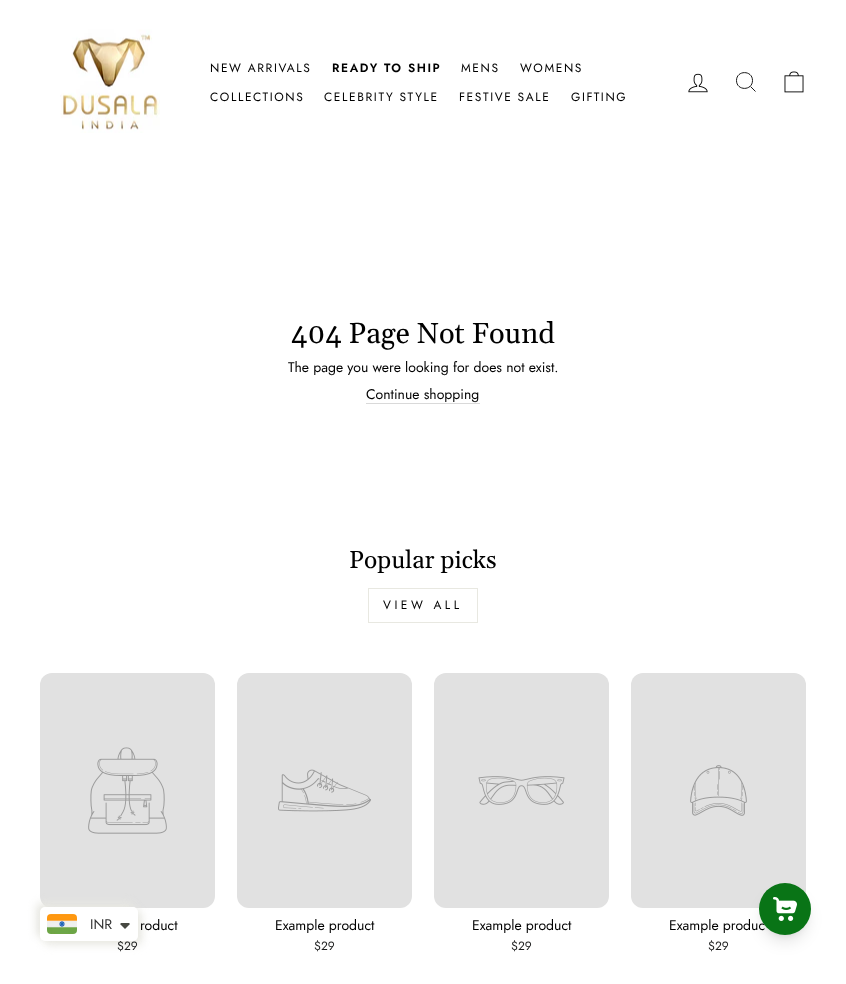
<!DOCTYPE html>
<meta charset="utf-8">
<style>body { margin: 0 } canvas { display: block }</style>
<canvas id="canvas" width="846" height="984"></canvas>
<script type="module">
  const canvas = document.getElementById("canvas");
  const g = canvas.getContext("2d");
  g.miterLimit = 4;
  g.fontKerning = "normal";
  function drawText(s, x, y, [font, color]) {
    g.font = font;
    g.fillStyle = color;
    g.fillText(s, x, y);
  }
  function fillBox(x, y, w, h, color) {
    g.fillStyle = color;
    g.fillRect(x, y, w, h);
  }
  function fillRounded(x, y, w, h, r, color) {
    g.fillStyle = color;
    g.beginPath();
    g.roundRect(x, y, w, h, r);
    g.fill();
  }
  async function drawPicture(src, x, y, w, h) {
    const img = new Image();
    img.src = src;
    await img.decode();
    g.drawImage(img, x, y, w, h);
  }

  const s1 = ["12px Jost", "#1C1D1D"];
  const s2 = ["14px Jost", "#333333"];
  const s3 = ["12px Jost", "#000000"];
  const s4 = ["600 12px Jost", "#000000"];
  const s5 = ["29px Gelasio", "#000000"];
  const s6 = ["14px Jost", "#000000"];
  const s7 = ["24.5px Gelasio", "#000000"];

  fillBox(0, 0, 846, 984, "#FFFFFF");
  fillRounded(40, 673, 175, 235, 12, "#E1E1E1");
  g.fillStyle = "#E8E8E2";
  g.filter = "blur(4.5px)";
  g.beginPath();
  g.roundRect(36, 903, 98, 34, 5);
  g.fill();
  g.filter = "none";
  g.filter = "blur(4.5px)";
  g.beginPath();
  g.roundRect(44, 911, 98, 34, 5);
  g.fill();
  g.filter = "none";
  drawText("$29", 117, 950, s1);
  fillRounded(40, 907, 98, 34, 5, "#FFFFFF");
  await drawPicture("pic1.png", 47, 914, 30, 20);
  drawText("INR", 90, 929, s2);
  g.fillStyle = "#474942";
  g.beginPath();
  g.moveTo(122, 923);
  g.bezierCurveTo(121, 923, 120.5, 923.5, 120, 924);
  g.lineTo(125, 929);
  g.lineTo(130, 924);
  g.lineTo(129, 923);
  g.closePath();
  g.fill();
  await drawPicture("pic2.png", 60, 29, 100, 104);
  g.letterSpacing = "1.6px";
  drawText("NEW ARRIVALS", 210, 72, s3);
  drawText("READY TO SHIP", 332, 72, s4);
  drawText("MENS", 461, 72, s3);
  drawText("WOMENS", 520, 72, s3);
  drawText("COLLECTIONS", 210, 101, s3);
  drawText("CELEBRITY STYLE", 324, 101, s3);
  drawText("FESTIVE SALE", 459, 101, s3);
  drawText("GIFTING", 571, 101, s3);
  await drawPicture("pic3.png", 688, 73, 20, 20);
  g.beginPath();
  g.moveTo(752.5, 80.5);
  g.bezierCurveTo(752.5, 91, 736.5, 91, 736.5, 80.5);
  g.bezierCurveTo(736.5, 70, 752.5, 70, 752.5, 80.5);
  g.closePath();
  g.moveTo(755.5, 91.5);
  g.lineTo(750.5, 86.5);
  g.strokeStyle = "#000000";
  g.lineWidth = 0.9;
  g.stroke();
  await drawPicture("pic4.png", 784, 71, 20, 22);
  g.letterSpacing = "0px";
  drawText("404 Page Not Found", 291, 343, s5);
  drawText("The page you were looking for does not exist.", 288, 372, s6);
  fillBox(366, 403, 114, 1, "#D9D9D9");
  drawText("Continue shopping", 366, 399, s6);
  drawText("Popular picks", 349, 568, s7);
  g.strokeStyle = "#E8E8E1";
  g.lineWidth = 1;
  g.strokeRect(368.5, 588.5, 109, 34);
  g.letterSpacing = "3.5px";
  drawText("VIEW ALL", 383, 609, s3);
  await drawPicture("pic5.png", 88, 747, 79, 87);
  g.letterSpacing = "0px";
  drawText("roduct", 140, 930, s6);
  fillRounded(237, 673, 175, 235, 12, "#E1E1E1");
  await drawPicture("pic6.png", 278, 769, 93, 43);
  drawText("Example product", 275, 930, s6);
  drawText("$29", 314, 950, s1);
  fillRounded(434, 673, 175, 235, 12, "#E1E1E1");
  await drawPicture("pic7.png", 478, 776, 87, 29);
  drawText("Example product", 472, 930, s6);
  drawText("$29", 511, 950, s1);
  fillRounded(631, 673, 175, 235, 12, "#E1E1E1");
  await drawPicture("pic8.png", 690, 765, 57, 51);
  drawText("Example produc", 669, 930, s6);
  drawText("$29", 708, 950, s1);
  g.fillStyle = "rgba(0, 0, 0, 0.1)";
  g.filter = "blur(3px)";
  g.beginPath();
  g.roundRect(763, 891, 44, 44, 22);
  g.fill();
  g.filter = "none";
  g.filter = "blur(7.5px)";
  g.beginPath();
  g.roundRect(762, 896, 46, 46, 23);
  g.fill();
  g.filter = "none";
  g.fillStyle = "#097416";
  g.beginPath();
  g.arc(785, 909, 26, 0, Math.PI * 2);
  g.fill();
  await drawPicture("pic9.png", 773, 897, 24, 24);
</script>
